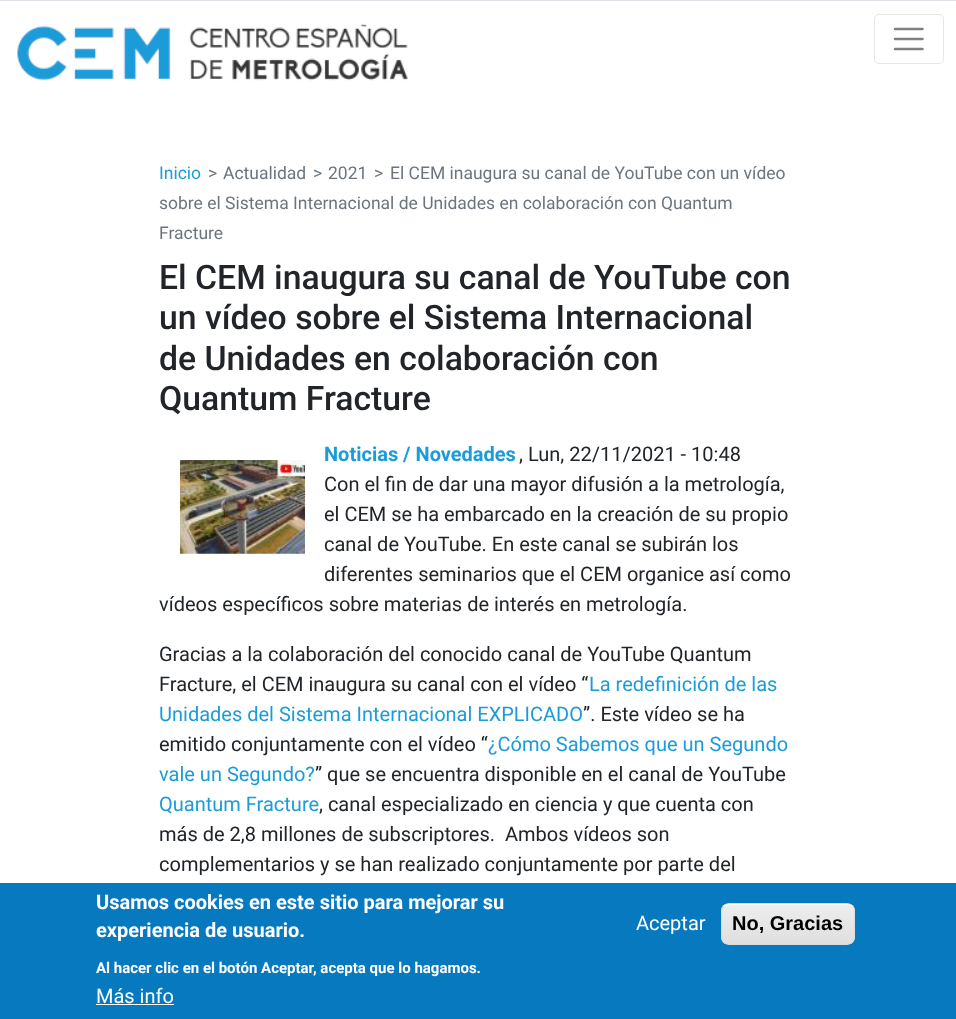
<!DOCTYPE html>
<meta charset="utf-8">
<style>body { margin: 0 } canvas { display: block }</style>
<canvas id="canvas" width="956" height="1019"></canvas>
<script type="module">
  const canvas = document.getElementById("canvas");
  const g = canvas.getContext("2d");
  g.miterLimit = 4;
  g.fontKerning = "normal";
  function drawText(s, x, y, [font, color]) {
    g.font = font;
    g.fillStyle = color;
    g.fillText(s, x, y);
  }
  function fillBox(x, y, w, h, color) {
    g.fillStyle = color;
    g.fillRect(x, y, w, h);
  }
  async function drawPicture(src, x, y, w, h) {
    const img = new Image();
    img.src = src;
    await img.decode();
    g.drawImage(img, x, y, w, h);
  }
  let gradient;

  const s1 = ["17.5px Roboto", "#6C757D"];
  const s2 = ["17.5px Roboto", "#1B9CD8"];
  const s3 = ["500 33.75px Roboto", "#212529"];
  const s4 = ["bold 20px Roboto", "#1B9CD8"];
  const s5 = ["20px Roboto", "#212529"];
  const s6 = ["20px Roboto", "#1B9CD8"];
  const s7 = ["bold 20px Roboto", "#FFFFFF"];
  const s8 = ["bold 15px Roboto", "#FFFFFF"];
  const s9 = ["20px Roboto", "#FFFFFF"];
  const s10 = ["bold 20px Liberation Sans", "#000000"];

  fillBox(0, 0, 956, 1019, "#FFFFFF");
  fillBox(0, 0, 956, 1, "#DEE2E6");
  await drawPicture("pic1.png", 17, 23, 391, 58);
  g.beginPath();
  g.roundRect(874.5, 14.5, 69, 49, 4.5);
  g.strokeStyle = "#E6E6E6";
  g.stroke();
  g.beginPath();
  g.moveTo(895, 29);
  g.lineTo(922.5, 29);
  g.moveTo(895, 39);
  g.lineTo(922.5, 39);
  g.moveTo(895, 49);
  g.lineTo(922.5, 49);
  g.strokeStyle = "#808080";
  g.lineWidth = 2.5;
  g.lineCap = "round";
  g.stroke();
  drawText(">", 374, 179, s1);
  drawText("El CEM inaugura su canal de YouTube con un vídeo", 390, 179, s1);
  drawText("sobre el Sistema Internacional de Unidades en colaboración con Quantum", 159, 209, s1);
  drawText("Fracture", 159, 239, s1);
  drawText("Inicio", 159, 179, s2);
  drawText(">", 208, 179, s1);
  drawText("Actualidad", 223, 179, s1);
  drawText(">", 313, 179, s1);
  drawText("2021", 328, 179, s1);
  drawText("El CEM inaugura su canal de YouTube con", 159, 289, s3);
  drawText("un vídeo sobre el Sistema Internacional", 159, 329, s3);
  drawText("de Unidades en colaboración con", 159, 370, s3);
  drawText("Quantum Fracture", 159, 410, s3);
  drawText("Noticias / Novedades", 324, 461, s4);
  drawText(", Lun, 22/11/2021 - 10:48", 519, 461, s5);
  await drawPicture("pic2.png", 180, 460, 125, 94);
  drawText("Con el fin de dar una mayor difusión a la metrología,", 324, 491, s5);
  drawText("el CEM se ha embarcado en la creación de su propio", 324, 521, s5);
  drawText("canal de YouTube. En este canal se subirán los", 324, 551, s5);
  drawText("diferentes seminarios que el CEM organice así como", 324, 581, s5);
  drawText("vídeos específicos sobre materias de interés en metrología.", 159, 611, s5);
  drawText("Gracias a la colaboración del conocido canal de YouTube Quantum", 159, 661, s5);
  drawText("Fracture, el CEM inaugura su canal con el vídeo “", 159, 691, s5);
  drawText("La redefinición de las", 589, 691, s6);
  drawText("Unidades del Sistema Internacional EXPLICADO", 159, 721, s6);
  drawText("”. Este vídeo se ha", 583, 721, s5);
  drawText("emitido conjuntamente con el vídeo “", 159, 751, s5);
  drawText("¿Cómo Sabemos que un Segundo", 488, 751, s6);
  drawText("vale un Segundo?", 159, 781, s6);
  drawText("” que se encuentra disponible en el canal de YouTube", 315, 781, s5);
  drawText("Quantum Fracture", 159, 811, s6);
  drawText(", canal especializado en ciencia y que cuenta con", 319, 811, s5);
  drawText("más de 2,8 millones de subscriptores.  Ambos vídeos son", 159, 841, s5);
  drawText("complementarios y se han realizado conjuntamente por parte del", 159, 871, s5);
  fillBox(0, 883, 956, 136, "#0779BF");
  drawText("Usamos cookies en este sitio para mejorar su", 96, 909, s7);
  drawText("experiencia de usuario.", 96, 937, s7);
  drawText("Al hacer clic en el botón Aceptar, acepta que lo hagamos.", 96, 973, s8);
  drawText("Más info", 96, 1003, s9);
  fillBox(96, 1004, 78, 1, "#FFFFFF");
  drawText("Aceptar", 636, 930, s9);
  g.save();
  g.beginPath();
  g.roundRect(721, 903, 134, 42, 8);
  g.clip();
  gradient = g.createLinearGradient(788, 904, 788, 944);
  gradient.addColorStop(0.05, "#EDEDED");
  gradient.addColorStop(1, "#DFDFDF");
  g.fillStyle = gradient;
  g.fillRect(721, 904, 134, 40);
  g.restore();
  g.beginPath();
  g.moveTo(729, 905);
  g.lineTo(848, 905);
  g.bezierCurveTo(851, 905, 854, 908, 854, 911);
  g.lineTo(854, 910);
  g.bezierCurveTo(854, 907, 851, 904, 848, 904);
  g.lineTo(729, 904);
  g.bezierCurveTo(727, 904, 725, 905, 724, 907);
  g.bezierCurveTo(725, 906, 727, 905, 729, 905);
  g.closePath();
  g.fill();
  g.beginPath();
  g.roundRect(721.5, 903.5, 133, 41, 7.5);
  g.strokeStyle = "#DCDCDC";
  g.lineWidth = 1;
  g.stroke();
  drawText("No, Gracias", 732, 930, s10);
</script>
